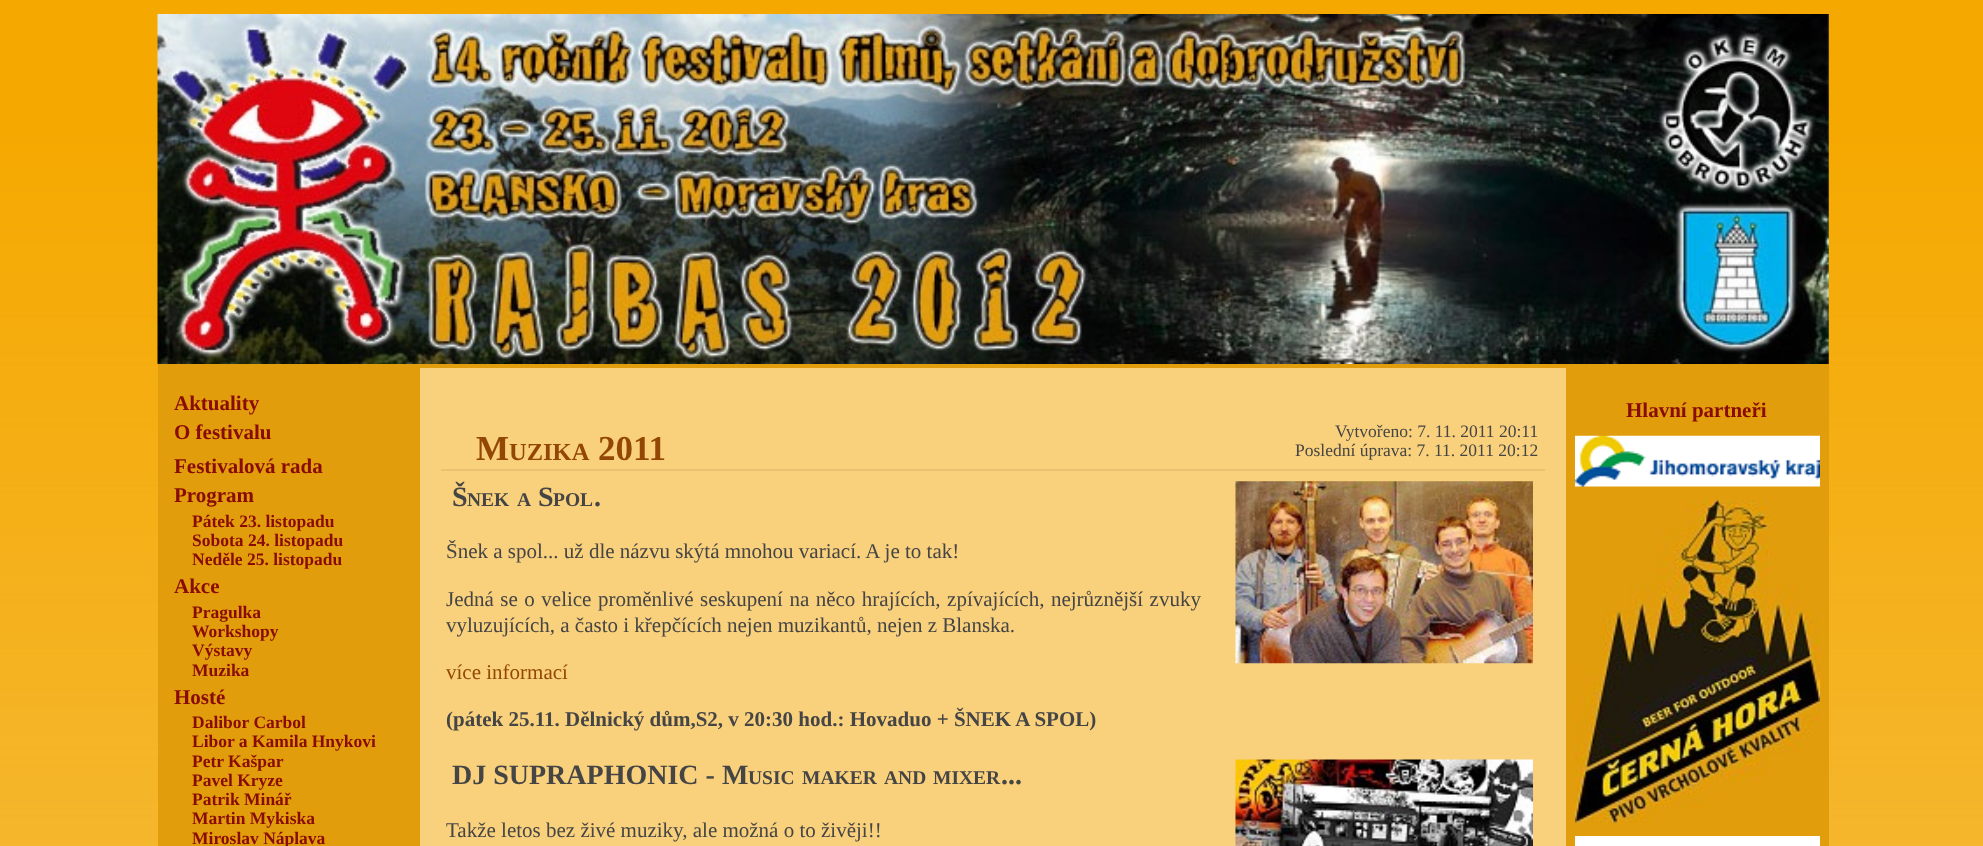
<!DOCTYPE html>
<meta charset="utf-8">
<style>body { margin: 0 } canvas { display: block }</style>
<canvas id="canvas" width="1983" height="846"></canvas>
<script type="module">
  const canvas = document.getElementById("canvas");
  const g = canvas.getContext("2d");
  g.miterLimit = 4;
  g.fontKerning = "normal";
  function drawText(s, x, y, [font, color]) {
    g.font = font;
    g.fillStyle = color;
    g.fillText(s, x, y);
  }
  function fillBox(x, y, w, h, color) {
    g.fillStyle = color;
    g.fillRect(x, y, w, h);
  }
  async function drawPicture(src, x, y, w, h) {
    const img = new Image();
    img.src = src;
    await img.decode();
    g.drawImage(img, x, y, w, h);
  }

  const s1 = ["bold 21px Liberation Serif", "#880B04"];
  const s2 = ["bold 17.5px Liberation Serif", "#880B04"];
  const s3 = ["bold 35px Liberation Serif", "#934704"];
  const s4 = ["bold 24.5px Liberation Serif", "#934704"];
  const s5 = ["17.5px Liberation Serif", "#454545"];
  const s6 = ["bold 28px Liberation Serif", "#454545"];
  const s7 = ["bold 19.5px Liberation Serif", "#454545"];
  const s8 = ["21px Liberation Serif", "#454545"];
  const s9 = ["21px Liberation Serif", "#934704"];
  const s10 = ["bold 21px Liberation Serif", "#454545"];

  fillBox(0, 0, 1983, 846, "#FFFFFF");
  await drawPicture("pic1.png", 0, 0, 1983, 846);
  fillBox(158, 14, 1671, 832, "#E29D0C");
  await drawPicture("pic2.png", 157, 14, 1672, 350);
  drawText("Aktuality", 174, 410, s1);
  drawText("O festivalu", 174, 439, s1);
  drawText("Festivalová rada", 174, 473, s1);
  drawText("Program", 174, 502, s1);
  drawText("Pátek 23. listopadu", 192, 527, s2);
  drawText("Sobota 24. listopadu", 192, 546, s2);
  drawText("Neděle 25. listopadu", 192, 565, s2);
  drawText("Akce", 174, 593, s1);
  drawText("Pragulka", 192, 618, s2);
  drawText("Workshopy", 192, 637, s2);
  drawText("Výstavy", 192, 656, s2);
  drawText("Muzika", 192, 676, s2);
  drawText("Hosté", 174, 704, s1);
  drawText("Dalibor Carbol", 192, 728, s2);
  drawText("Libor a Kamila Hnykovi", 192, 747, s2);
  drawText("Petr Kašpar", 192, 767, s2);
  drawText("Pavel Kryze", 192, 786, s2);
  drawText("Patrik Minář", 192, 805, s2);
  drawText("Martin Mykiska", 192, 824, s2);
  drawText("Miroslav Náplava", 192, 844, s2);
  drawText("Hlavní partneři", 1626, 417, s1);
  await drawPicture("pic3.png", 1575, 435, 245, 52);
  await drawPicture("pic4.png", 1575, 500, 245, 323);
  fillBox(1575, 836, 245, 10, "#FFFFFF");
  fillBox(420, 368, 1146, 478, "#F9D07B");
  fillBox(441, 469, 1104, 2, "#EBC272");
  drawText("M", 476, 460, s3);
  drawText("UZIKA", 509, 460, s4);
  drawText("2011", 598, 460, s3);
  drawText("Vytvořeno: 7. 11. 2011 20:11", 1335, 437, s5);
  drawText("Poslední úprava: 7. 11. 2011 20:12", 1295, 456, s5);
  drawText("Š", 452, 506, s6);
  drawText("NEK", 467, 506, s7);
  drawText("A", 517, 506, s7);
  drawText("S", 538, 506, s6);
  drawText("POL", 553, 506, s7);
  drawText(".", 594, 506, s6);
  await drawPicture("pic5.png", 1235, 481, 298, 183);
  drawText("Šnek a spol... už dle názvu skýtá mnohou variací. A je to tak!", 446, 558, s8);
  g.wordSpacing = "1.25px";
  drawText("Jedná se o velice proměnlivé seskupení na něco hrajících, zpívajících, nejrůznější zvuky", 446, 606, s8);
  g.wordSpacing = "0px";
  drawText("vyluzujících, a často i křepčících nejen muzikantů, nejen z Blanska.", 446, 632, s8);
  drawText("více informací", 446, 679, s9);
  drawText("(pátek 25.11. Dělnický dům,S2, v 20:30 hod.: Hovaduo + ŠNEK A SPOL)", 446, 726, s10);
  drawText("DJ SUPRAPHONIC - M", 452, 784, s6);
  drawText("USIC", 748, 784, s7);
  drawText("MAKER", 802, 784, s7);
  drawText("AND", 884, 784, s7);
  drawText("MIXER", 933, 784, s7);
  drawText("...", 1001, 784, s6);
  await drawPicture("pic6.png", 1235, 759, 298, 87);
  drawText("Takže letos bez živé muziky, ale možná o to živěji!!", 446, 837, s8);
</script>
